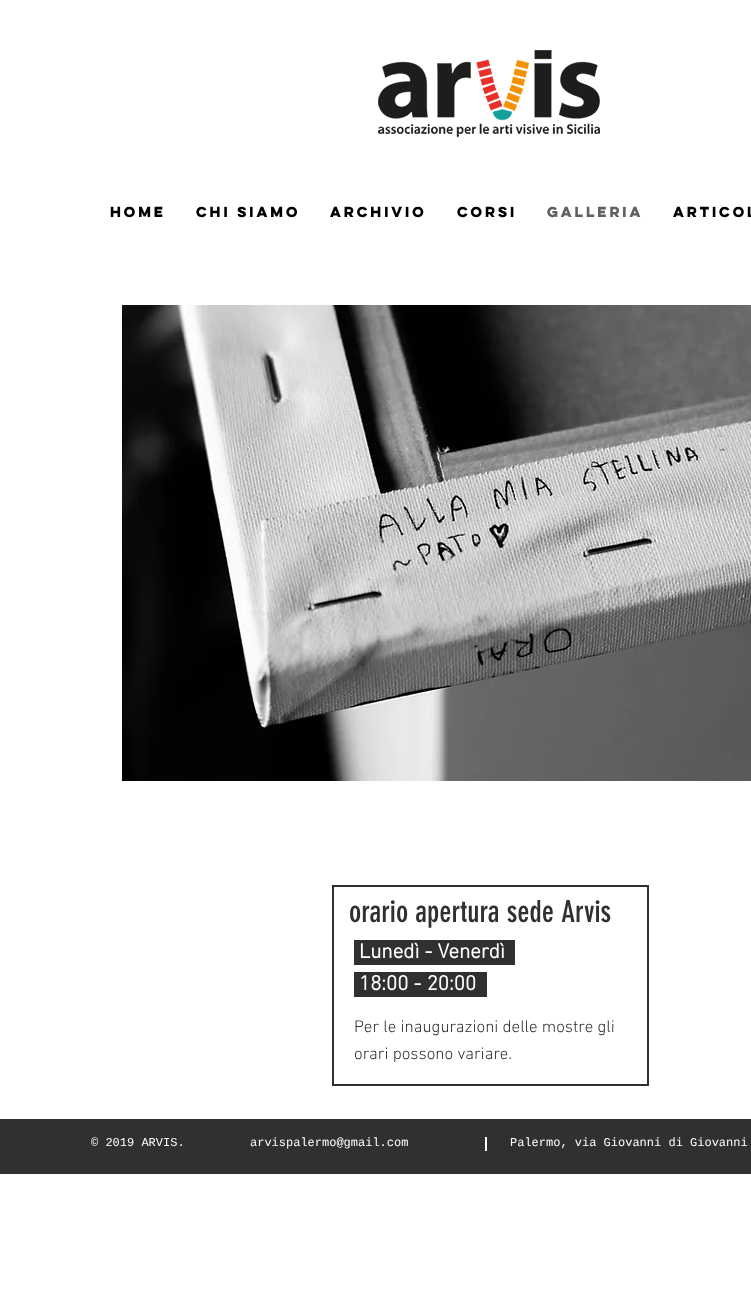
<!DOCTYPE html>
<meta charset="utf-8">
<style>body { margin: 0 } canvas { display: block }</style>
<canvas id="canvas" width="751" height="1311"></canvas>
<script type="module">
  const canvas = document.getElementById("canvas");
  const g = canvas.getContext("2d");
  g.miterLimit = 4;
  g.fontKerning = "normal";
  function drawText(s, x, y, [font, color]) {
    g.font = font;
    g.fillStyle = color;
    g.fillText(s, x, y);
  }
  function fillBox(x, y, w, h, color) {
    g.fillStyle = color;
    g.fillRect(x, y, w, h);
  }
  async function drawPicture(src, x, y, w, h) {
    const img = new Image();
    img.src = src;
    await img.decode();
    g.drawImage(img, x, y, w, h);
  }

  const s1 = ["bold 13px 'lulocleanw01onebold'", "#000000"];
  const s2 = ["bold 13px 'lulocleanw01onebold'", "#606060"];
  const s3 = ["30px 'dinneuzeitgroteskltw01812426'", "#303030"];
  const s4 = ["bold 21px 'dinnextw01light'", "#FFFFFF"];
  const s5 = ["300 17px 'dinnextw01light'", "#303030"];
  const s6 = ["12px Liberation Mono", "#FFFFFF"];

  fillBox(0, 0, 751, 1311, "#FFFFFF");
  await drawPicture("pic1.png", 378, 50, 222, 87);
  drawText("home", 110, 217, s1);
  drawText("Chi siamo", 196, 217, s1);
  drawText("archivio", 330, 217, s1);
  drawText("corsi", 457, 217, s1);
  drawText("Galleria", 547, 217, s2);
  drawText("Articol", 673, 217, s1);
  await drawPicture("pic2.png", 122, 305, 629, 476);
  g.strokeStyle = "#303030";
  g.lineWidth = 2;
  g.strokeRect(333, 886, 315, 199);
  drawText("orario apertura sede Arvis", 349, 922, s3);
  fillBox(354, 940, 161, 25, "#303030");
  drawText("Lunedì - Venerdì", 359, 958, s4);
  fillBox(354, 972, 133, 25, "#303030");
  drawText("18:00 - 20:00", 359, 990, s4);
  drawText("Per le inaugurazioni delle mostre gli", 354, 1032, s5);
  drawText("orari possono variare.", 354, 1059, s5);
  fillBox(0, 1119, 751, 55, "#303030");
  drawText("© 2019 ARVIS.", 91, 1146, s6);
  drawText("arvispalermo@gmail.com", 250, 1146, s6);
  fillBox(485, 1137, 2, 14, "#FFFFFF");
  drawText("Palermo, via Giovanni di Giovanni", 510, 1146, s6);
</script>
